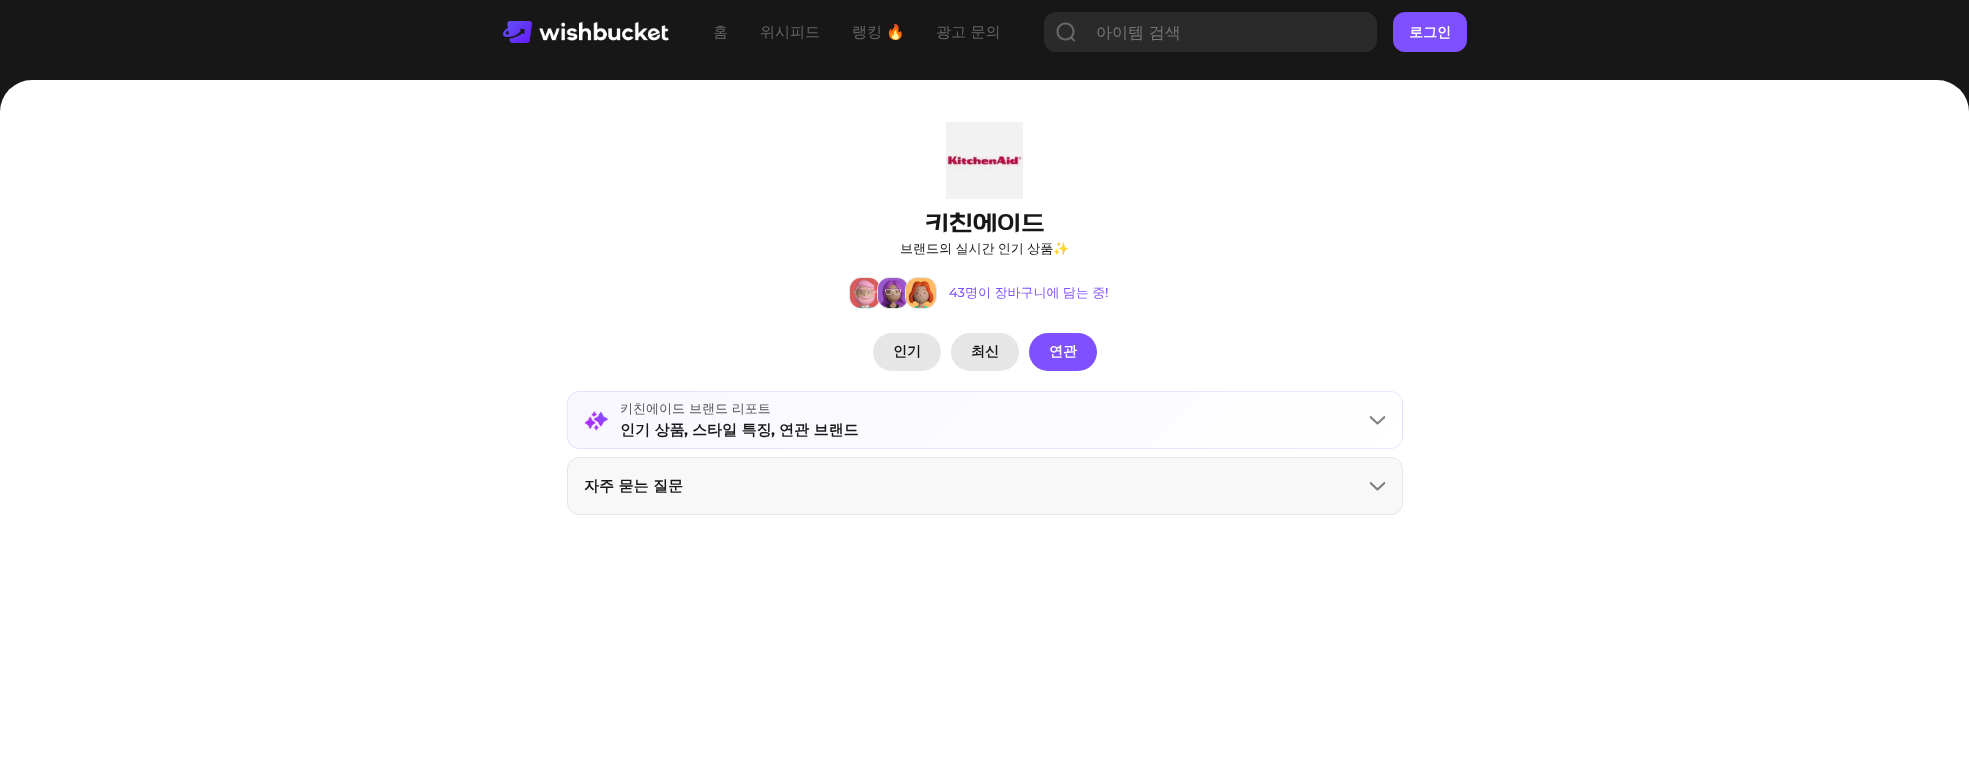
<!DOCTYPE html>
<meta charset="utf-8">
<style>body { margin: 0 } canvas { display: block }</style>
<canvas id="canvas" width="1969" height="777"></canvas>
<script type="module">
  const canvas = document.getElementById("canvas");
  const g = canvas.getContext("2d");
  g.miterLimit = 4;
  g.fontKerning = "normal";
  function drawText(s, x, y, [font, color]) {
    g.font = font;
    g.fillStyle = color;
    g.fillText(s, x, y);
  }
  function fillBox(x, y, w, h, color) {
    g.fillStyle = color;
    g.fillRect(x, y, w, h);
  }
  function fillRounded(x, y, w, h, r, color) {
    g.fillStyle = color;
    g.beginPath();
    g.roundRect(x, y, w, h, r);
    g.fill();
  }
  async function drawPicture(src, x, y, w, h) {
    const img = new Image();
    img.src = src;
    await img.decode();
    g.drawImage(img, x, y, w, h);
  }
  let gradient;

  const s1 = ["500 15px WenQuanYi Zen Hei", "#656565"];
  const s2 = ["15px Noto Color Emoji", "#656565"];
  const s3 = ["500 16px WenQuanYi Zen Hei", "#757575"];
  const s4 = ["bold 14px WenQuanYi Zen Hei", "#FFFFFF"];
  const s5 = ["bold 24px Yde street", "#181717"];
  const s6 = ["500 13px WenQuanYi Zen Hei", "#181717"];
  const s7 = ["13px Noto Color Emoji", "#181717"];
  const s8 = ["500 13px Montserrat", "#7F50FF"];
  const s9 = ["500 13px WenQuanYi Zen Hei", "#7F50FF"];
  const s10 = ["bold 14px WenQuanYi Zen Hei", "#181717"];
  const s11 = ["500 13px WenQuanYi Zen Hei", "#565656"];
  const s12 = ["bold 15px WenQuanYi Zen Hei", "#181717"];
  const s13 = ["bold 15px Montserrat", "#181717"];

  fillBox(0, 0, 1969, 777, "#181717");
  await drawPicture("pic1.png", 503, 21, 166, 22);
  drawText("홈", 713, 37, s1);
  drawText("위시피드", 760, 37, s1);
  drawText("랭킹", 852, 37, s1);
  drawText("🔥", 886, 37, s2);
  drawText("광고 문의", 936, 37, s1);
  fillRounded(1044, 12, 333, 40, 12, "#2B2A2A");
  await drawPicture("pic2.png", 1056, 22, 20, 20);
  drawText("아이템 검색", 1096, 38, s3);
  fillRounded(1393, 12, 74, 40, 12, "#7F50FF");
  drawText("로그인", 1409, 37, s4);
  fillRounded(0, 80, 1969, 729, 32, "#FFFFFF");
  await drawPicture("pic3.png", 946, 155, 77, 16);
  fillBox(946, 122, 77, 77, "rgba(0, 0, 0, 0.05)");
  drawText("키친에이드", 925, 231, s5);
  drawText("브랜드", 900, 253, s6);
  g.wordSpacing = "-0.5px";
  drawText("의 실시간 인기 상품", 939, 253, s6);
  g.wordSpacing = "0px";
  drawText("✨", 1053, 253, s7);
  g.beginPath();
  g.roundRect(849.5, 277.5, 31, 31, 11.5);
  g.strokeStyle = "#E6E6E6";
  g.stroke();
  await drawPicture("pic4.png", 850, 278, 30, 30);
  g.beginPath();
  g.roundRect(877.5, 277.5, 31, 31, 11.5);
  g.stroke();
  await drawPicture("pic5.png", 878, 278, 30, 30);
  g.beginPath();
  g.roundRect(905.5, 277.5, 31, 31, 11.5);
  g.stroke();
  await drawPicture("pic6.png", 906, 278, 30, 30);
  drawText("43", 949, 297, s8);
  g.wordSpacing = "-0.5px";
  drawText("명이 장바구니에 담는 중", 965, 297, s9);
  g.wordSpacing = "0px";
  drawText("!", 1105, 297, s8);
  fillRounded(873, 333, 68, 38, 19, "#E6E6E6");
  drawText("인기", 893, 356, s10);
  fillRounded(951, 333, 68, 38, 19, "#E6E6E6");
  drawText("최신", 971, 356, s10);
  fillRounded(1029, 333, 68, 38, 19, "#7F50FF");
  drawText("연관", 1049, 356, s4);
  g.save();
  g.beginPath();
  g.roundRect(567, 391, 836, 58, 12);
  g.clip();
  gradient = g.createLinearGradient(763, 142, 1208, 587);
  gradient.addColorStop(0, "#F8F7FF");
  gradient.addColorStop(1, "#FFFFFF");
  g.fillStyle = gradient;
  g.fillRect(568, 391, 834, 1);
  gradient = g.createLinearGradient(763, 198, 1208, 643);
  gradient.addColorStop(0, "#F8F7FF");
  gradient.addColorStop(1, "#FFFFFF");
  g.fillStyle = gradient;
  g.fillRect(568, 392, 834, 56);
  gradient = g.createLinearGradient(1597, 198, 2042, 643);
  gradient.addColorStop(0, "#F8F7FF");
  gradient.addColorStop(1, "#FFFFFF");
  g.fillStyle = gradient;
  g.fillRect(1402, 392, 1, 56);
  gradient = g.createLinearGradient(763, 254, 1208, 699);
  gradient.addColorStop(0, "#F8F7FF");
  gradient.addColorStop(1, "#FFFFFF");
  g.fillStyle = gradient;
  g.fillRect(568, 448, 834, 1);
  g.restore();
  g.beginPath();
  g.roundRect(567.5, 391.5, 835, 57, 11.5);
  g.strokeStyle = "rgba(127, 80, 255, 0.15)";
  g.stroke();
  await drawPicture("pic7.png", 584, 411, 24, 20);
  drawText("키친에이드 브랜드 리포트", 620, 413, s11);
  drawText("인기 상품", 620, 435, s12);
  drawText(",", 684, 435, s13);
  drawText("스타일 특징", 692, 435, s12);
  drawText(",", 771, 435, s13);
  drawText("연관 브랜드", 779, 435, s12);
  g.save();
  g.beginPath();
  g.moveTo(1385.5, 412);
  g.lineTo(1385.5, 428);
  g.lineTo(1369.5, 428);
  g.lineTo(1369.5, 412);
  g.closePath();
  g.clip();
  g.beginPath();
  g.moveTo(1385.5, 412);
  g.lineTo(1385.5, 428);
  g.lineTo(1369.5, 428);
  g.lineTo(1369.5, 412);
  g.closePath();
  g.clip();
  g.beginPath();
  g.moveTo(1370.5, 417);
  g.lineTo(1377.5, 423.5);
  g.lineTo(1384.5, 417);
  g.strokeStyle = "#7F7F80";
  g.lineWidth = 2.1;
  g.lineCap = "round";
  g.lineJoin = "round";
  g.stroke();
  g.restore();
  g.fillStyle = "#F8F8F8";
  g.beginPath();
  g.roundRect(567.5, 457.5, 835, 57, 11.5);
  g.fill();
  g.strokeStyle = "#E6E6E6";
  g.stroke();
  drawText("자주 묻는 질문", 584, 491, s12);
  g.save();
  g.beginPath();
  g.moveTo(1385.5, 478);
  g.lineTo(1385.5, 494);
  g.lineTo(1369.5, 494);
  g.lineTo(1369.5, 478);
  g.closePath();
  g.clip();
  g.beginPath();
  g.moveTo(1385.5, 478);
  g.lineTo(1385.5, 494);
  g.lineTo(1369.5, 494);
  g.lineTo(1369.5, 478);
  g.closePath();
  g.clip();
  g.beginPath();
  g.moveTo(1370.5, 483);
  g.lineTo(1377.5, 489.5);
  g.lineTo(1384.5, 483);
  g.strokeStyle = "#7C7C7C";
  g.lineWidth = 2.1;
  g.lineCap = "round";
  g.lineJoin = "round";
  g.stroke();
  g.restore();
</script>
